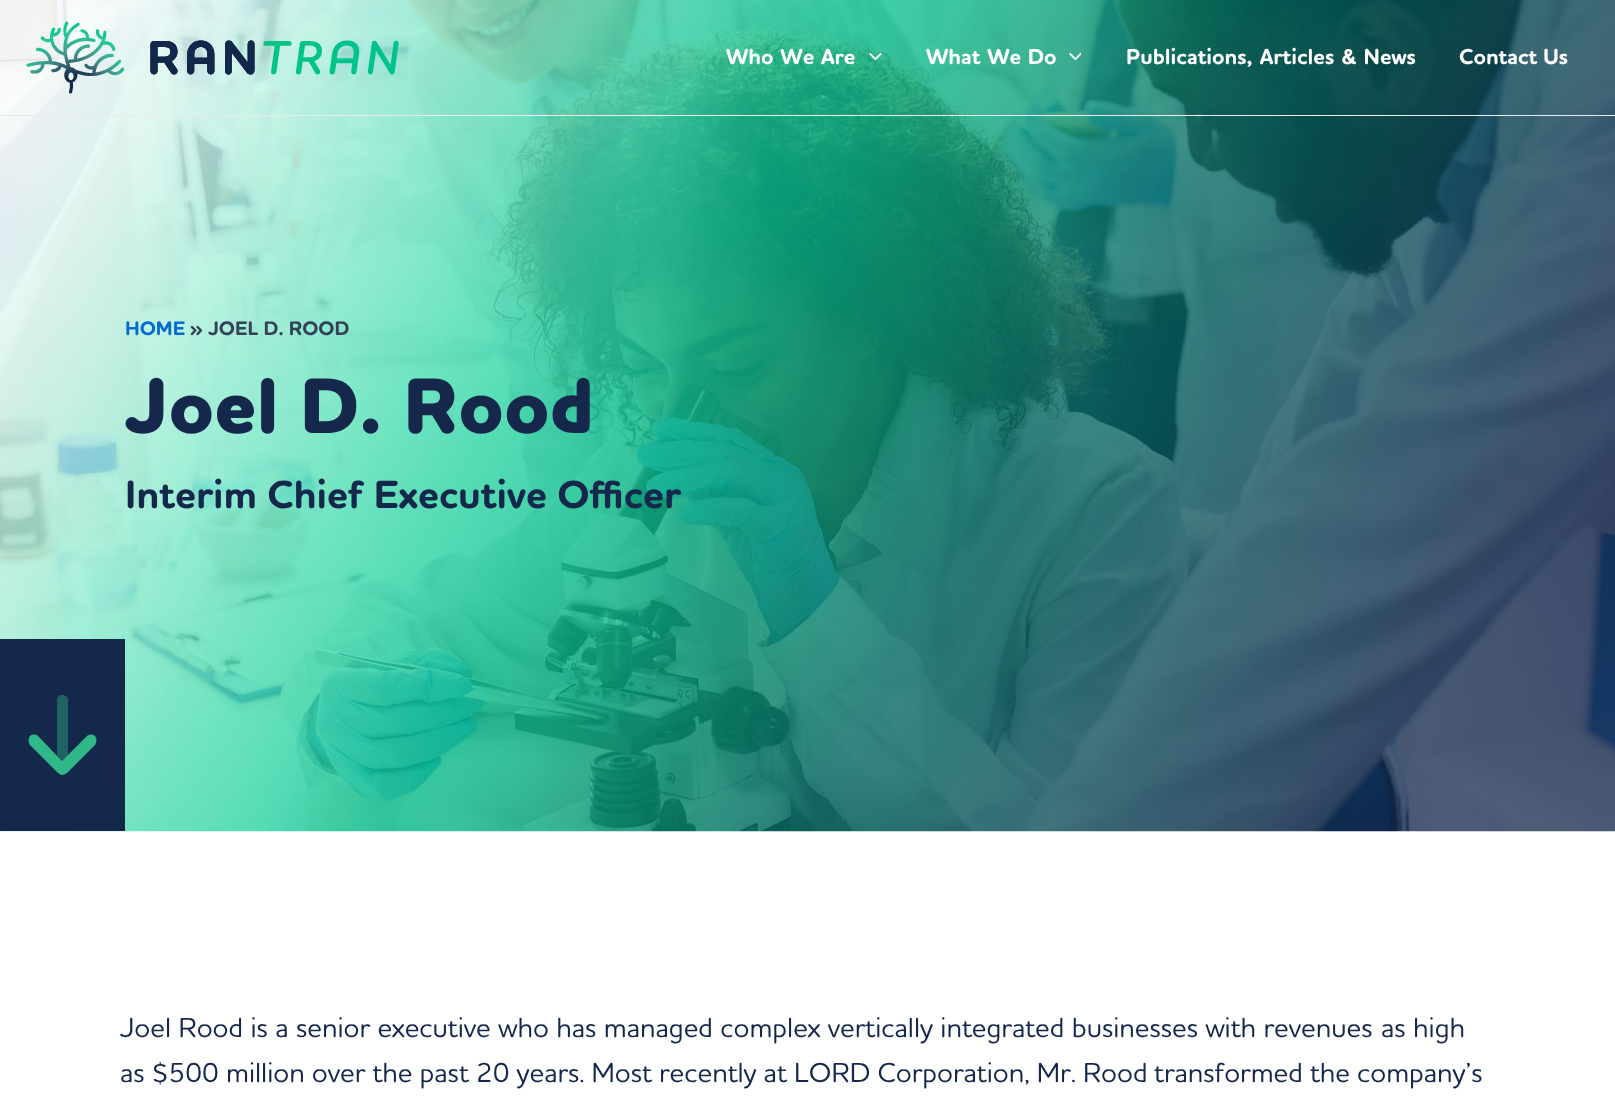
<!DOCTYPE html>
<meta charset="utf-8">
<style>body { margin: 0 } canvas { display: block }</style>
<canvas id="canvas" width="1615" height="1114"></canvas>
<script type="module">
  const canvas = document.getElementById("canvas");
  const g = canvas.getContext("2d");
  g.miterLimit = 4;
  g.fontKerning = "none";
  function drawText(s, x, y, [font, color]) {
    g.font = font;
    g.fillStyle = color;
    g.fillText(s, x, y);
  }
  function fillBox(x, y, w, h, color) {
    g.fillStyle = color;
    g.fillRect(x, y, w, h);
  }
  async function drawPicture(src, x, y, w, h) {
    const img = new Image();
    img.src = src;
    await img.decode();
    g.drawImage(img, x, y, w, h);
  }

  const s1 = ["bold 22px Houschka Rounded", "#FFFFFF"];
  const s2 = ["bold 20px Houschka Rounded", "#046BD2"];
  const s3 = ["bold 20px Houschka Rounded", "#334155"];
  const s4 = ["800 80px Houschka Rounded", "#15284C"];
  const s5 = ["bold 40px Houschka Rounded", "#15284C"];
  const s6 = ["500 28px Houschka Rounded", "#15284C"];

  fillBox(0, 0, 1615, 1114, "#FFFFFF");
  await drawPicture("pic4.png", 0, 0, 1615, 832);
  fillBox(0, 115, 1615, 1, "#EAEAEA");
  await drawPicture("pic1.png", 26, 21, 373, 73);
  g.wordSpacing = "1px";
  drawText("Who We Are", 726, 64, s1);
  await drawPicture("pic2.png", 869, 52, 13, 9);
  drawText("What We Do", 926, 64, s1);
  await drawPicture("pic3.png", 1069, 52, 12, 9);
  g.wordSpacing = "1.5px";
  drawText("Publications, Articles & News", 1126, 64, s1);
  g.wordSpacing = "0px";
  drawText("Contact Us", 1459, 64, s1);
  drawText("HOME", 125, 335, s2);
  drawText("» JOEL D. ROOD", 190, 335, s3);
  drawText("Joel D. Rood", 125, 433, s4);
  drawText("Interim Chief Executive Officer", 125, 508, s5);
  fillBox(0, 639, 125, 192, "#13284B");
  g.fillStyle = "#31B889";
  g.beginPath();
  g.moveTo(62, 775);
  g.bezierCurveTo(61, 775, 60, 774, 58, 773);
  g.lineTo(30, 745);
  g.bezierCurveTo(28, 742, 28, 739, 30, 736);
  g.bezierCurveTo(32, 734, 36, 734, 38, 736);
  g.lineTo(62, 761);
  g.lineTo(87, 736);
  g.bezierCurveTo(89, 734, 93, 734, 95, 736);
  g.bezierCurveTo(97, 739, 97, 742, 95, 745);
  g.lineTo(67, 773);
  g.bezierCurveTo(65, 774, 64, 775, 62, 775);
  g.closePath();
  g.fill();
  g.fillStyle = "rgba(49, 184, 137, 0.4)";
  g.beginPath();
  g.moveTo(57, 755);
  g.lineTo(57, 700);
  g.bezierCurveTo(57, 697, 59, 695, 62, 695);
  g.bezierCurveTo(65, 695, 68, 697, 68, 700);
  g.lineTo(68, 755);
  g.lineTo(62, 761);
  g.closePath();
  g.fill();
  g.wordSpacing = "0.3px";
  drawText("Joel Rood is a senior executive who has managed complex vertically integrated businesses with revenues", 120, 1037, s6);
  drawText("as high", 1381, 1037, s6);
  g.wordSpacing = "0px";
  drawText("as $500 million over the past 20 years. Most recently at LORD Corporation, Mr. Rood", 120, 1082, s6);
  drawText("transformed the company’s", 1154, 1082, s6);
</script>
